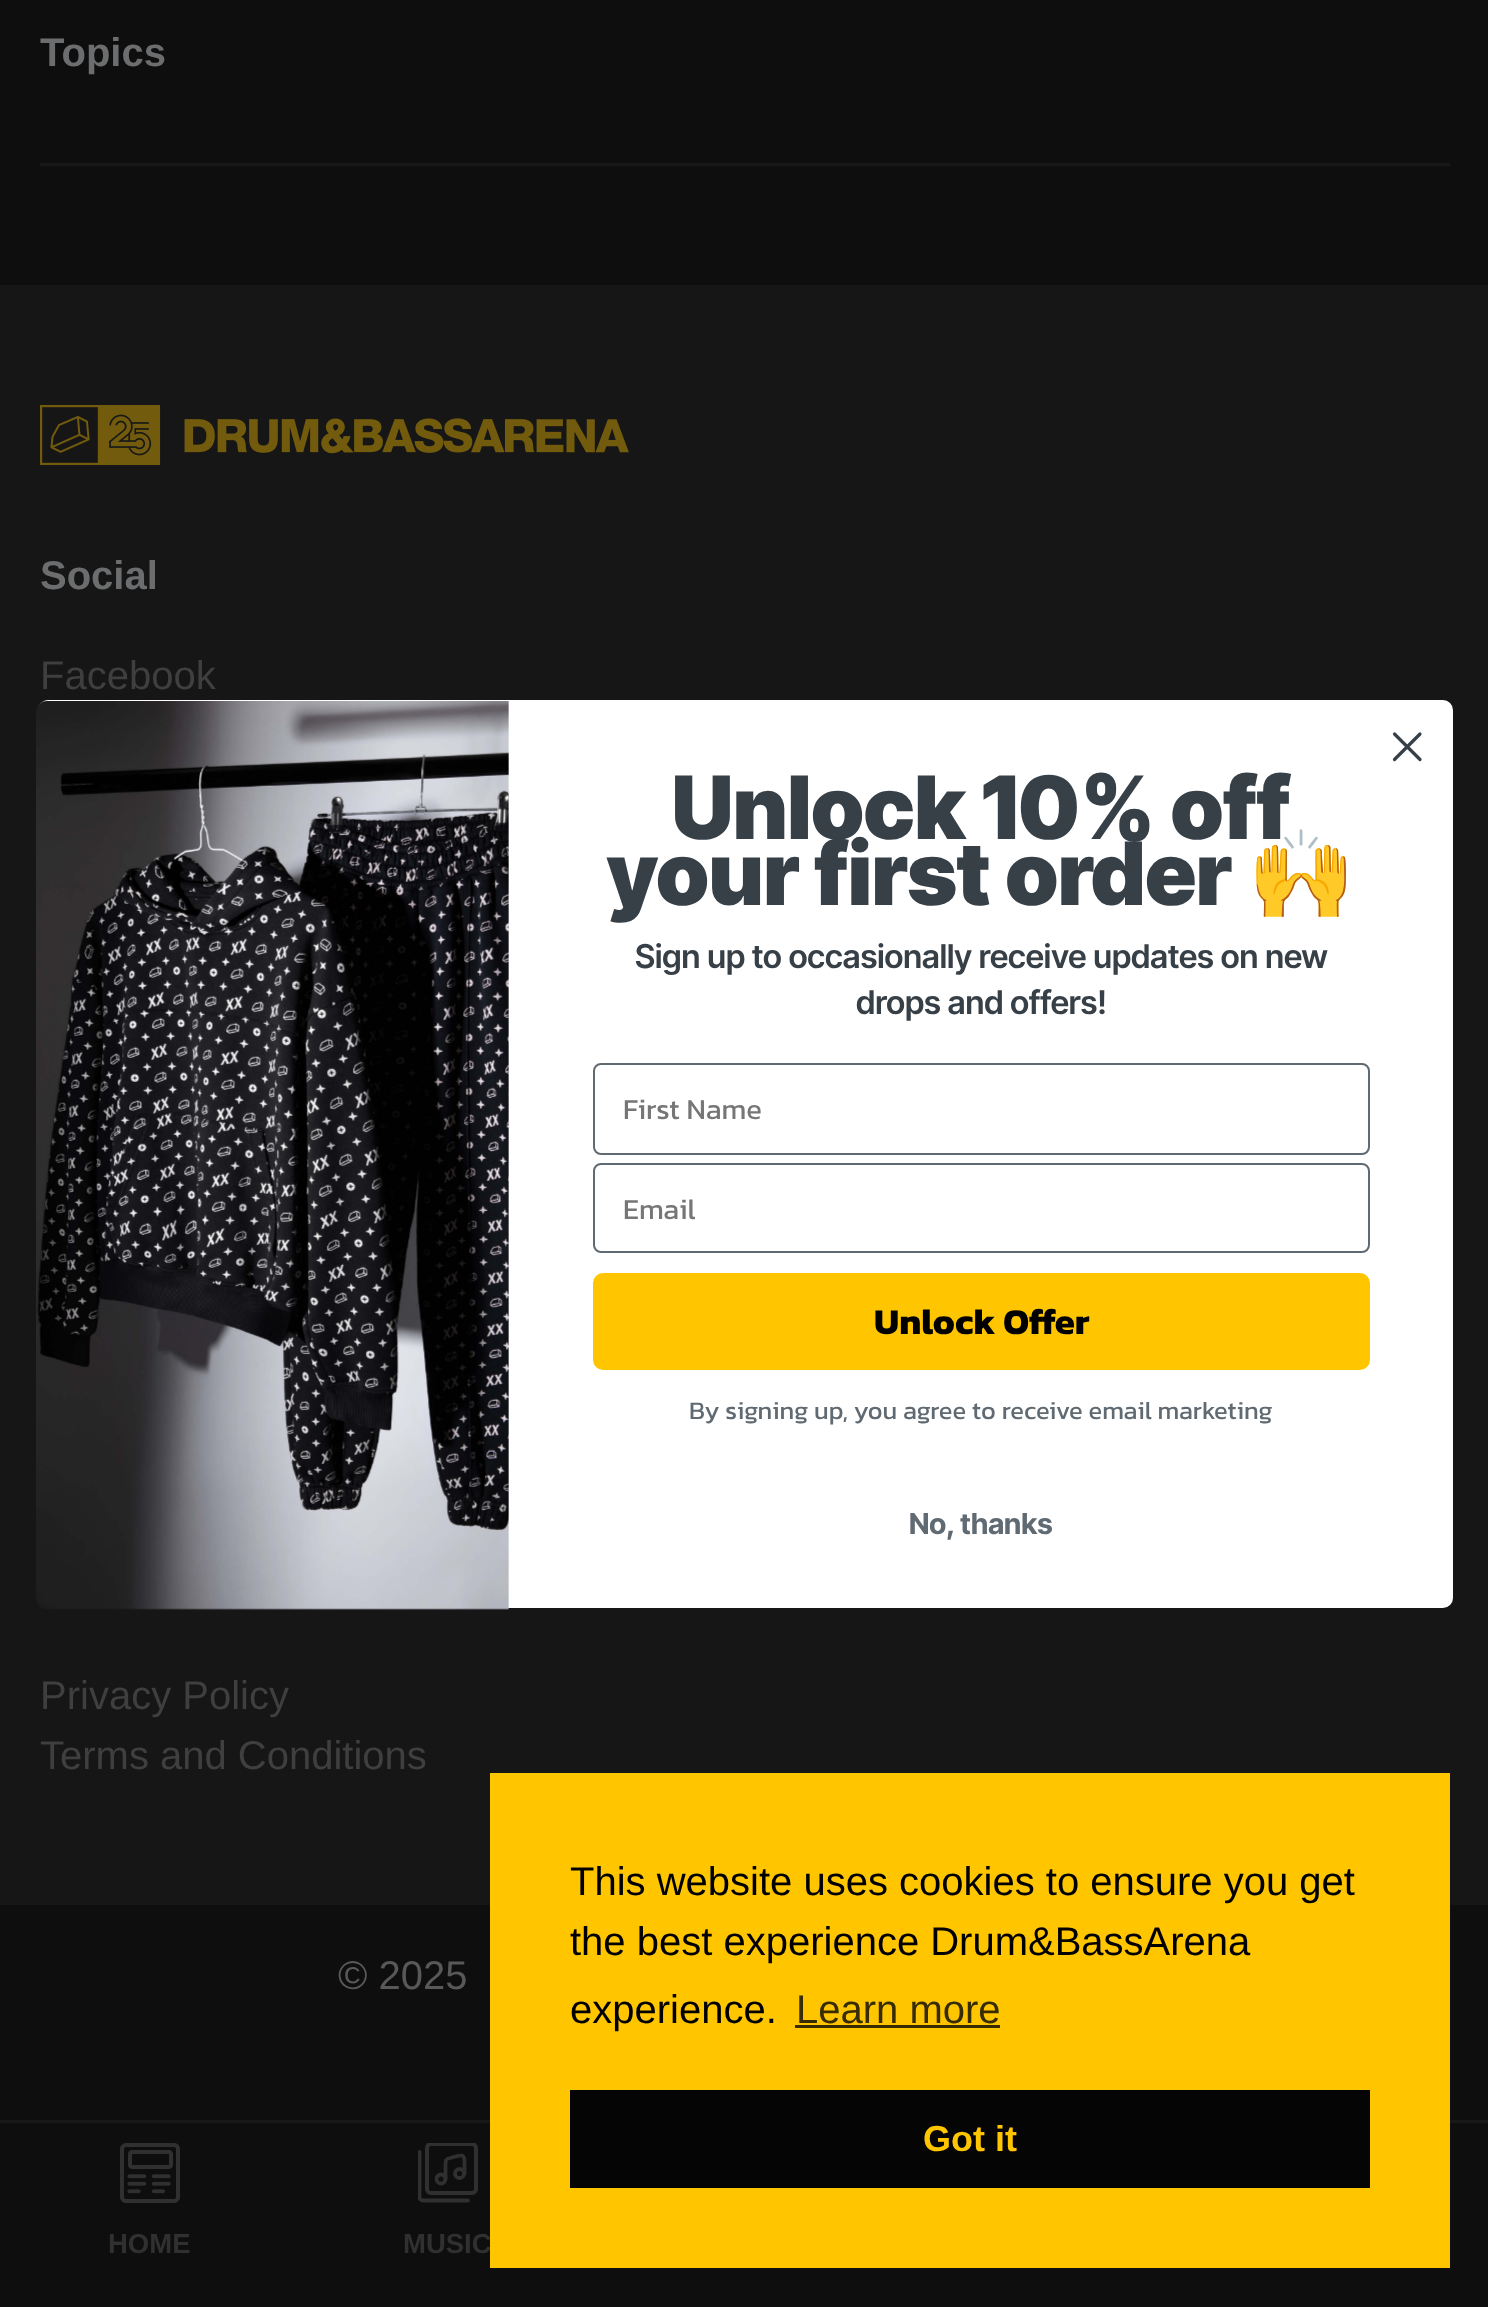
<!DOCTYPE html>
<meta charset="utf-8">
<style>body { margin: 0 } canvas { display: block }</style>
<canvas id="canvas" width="1488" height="2307"></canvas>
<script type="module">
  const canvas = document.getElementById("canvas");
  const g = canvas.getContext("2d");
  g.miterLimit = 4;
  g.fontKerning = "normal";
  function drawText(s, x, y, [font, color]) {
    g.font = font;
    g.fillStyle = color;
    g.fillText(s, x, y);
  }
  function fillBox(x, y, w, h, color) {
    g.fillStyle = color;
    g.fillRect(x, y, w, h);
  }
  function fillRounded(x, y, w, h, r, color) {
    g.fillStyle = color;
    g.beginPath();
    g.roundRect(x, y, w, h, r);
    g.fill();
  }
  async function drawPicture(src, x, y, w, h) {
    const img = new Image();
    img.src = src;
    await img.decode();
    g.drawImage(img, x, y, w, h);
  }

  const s1 = ["bold 40px Liberation Sans", "#6C6D6E"];
  const s2 = ["40px Liberation Sans", "#3F3F40"];
  const s3 = ["40px Liberation Sans", "#585859"];
  const s4 = ["900 87.25px Inter Tight", "#373F47"];
  const s5 = ["bold 87.25px Noto Color Emoji", "#373F47"];
  const s6 = ["600 32.75px Inter Tight", "#373F47"];
  const s7 = ["29px Kanit", "#767676"];
  const s8 = ["bold 36.5px Kanit", "#000000"];
  const s9 = ["25.4px Kanit", "#606A72"];
  const s10 = ["bold 29px Inter Tight", "#606A72"];
  const s11 = ["bold 27.5px Liberation Sans", "#303030"];
  const s12 = ["40px Liberation Sans", "#000000"];
  const s13 = ["40px Liberation Sans", "#372C04"];
  const s14 = ["bold 36px Liberation Sans", "#FFC600"];

  fillBox(0, 0, 1488, 2307, "#0E0E0E");
  fillBox(40, 163, 1410, 3, "#181818");
  drawText("Topics", 40, 66, s1);
  fillBox(0, 285, 1488, 1620, "#161616");
  await drawPicture("pic1.png", 40, 405, 589, 60);
  drawText("Social", 40, 589, s1);
  drawText("Facebook", 40, 689, s2);
  drawText("Privacy Policy", 40, 1709, s2);
  drawText("Terms and Conditions", 40, 1769, s2);
  drawText("© 2025", 338, 1989, s3);
  fillRounded(38, 700, 1415, 908, 10, "#FFFFFF");
  g.beginPath();
  g.moveTo(1394.5, 734);
  g.lineTo(1420, 759.5);
  g.moveTo(1394.5, 759.5);
  g.lineTo(1420, 734);
  g.closePath();
  g.strokeStyle = "#373F47";
  g.lineWidth = 3.2;
  g.lineCap = "round";
  g.lineJoin = "round";
  g.stroke();
  await drawPicture("pic2.png", 36, 701, 473, 909);
  drawText("Unlock 10% off", 672, 839, s4);
  drawText("your first order", 607, 905, s4);
  drawText("🙌", 1247, 905, s5);
  drawText("Sign up to occasionally receive updates on new", 635, 968, s6);
  drawText("drops and offers!", 856, 1014, s6);
  g.beginPath();
  g.roundRect(594, 1064, 775, 90, 7);
  g.strokeStyle = "#606A72";
  g.lineWidth = 2;
  g.lineJoin = "miter";
  g.stroke();
  drawText("First Name", 623, 1119, s7);
  g.beginPath();
  g.roundRect(594, 1164, 775, 88, 7);
  g.stroke();
  drawText("Email", 623, 1219, s7);
  fillRounded(593, 1273, 777, 97, 10, "#FFC600");
  drawText("Unlock Offer", 874, 1334, s8);
  drawText("By signing up, you agree to receive email marketing", 689, 1419, s9);
  drawText("No, thanks", 909, 1534, s10);
  fillBox(0, 2120, 1488, 3, "#181818");
  drawText("MUSIC", 403, 2253, s11);
  fillBox(490, 1773, 960, 495, "#FFC600");
  drawText("This website uses cookies to ensure you get", 570, 1895, s12);
  drawText("the best experience Drum&BassArena", 570, 1955, s12);
  drawText("experience.", 570, 2023, s12);
  drawText("Learn more", 796, 2023, s13);
  fillBox(795, 2025, 205, 3, "#372C04");
  fillBox(570, 2090, 800, 98, "#050505");
  drawText("Got it", 923, 2151, s14);
  await drawPicture("pic3.png", 120, 2143, 60, 60);
  drawText("HOME", 108, 2253, s11);
  g.save();
  g.beginPath();
  g.rect(418, 2143, 60, 60);
  g.clip();
  g.beginPath();
  g.roundRect(427, 2144, 49, 49, 4);
  g.strokeStyle = "#303030";
  g.lineWidth = 4;
  g.stroke();
  g.beginPath();
  g.moveTo(468, 2200.5);
  g.lineTo(423, 2200.5);
  g.bezierCurveTo(421, 2200.5, 419.5, 2199, 419.5, 2197);
  g.lineTo(419.5, 2152);
  g.lineWidth = 3.8;
  g.lineJoin = "round";
  g.stroke();
  g.restore();
  g.beginPath();
  g.arc(441, 2179, 4.5, 0, Math.PI * 2);
  g.strokeStyle = "#303030";
  g.lineWidth = 3.8;
  g.stroke();
  g.beginPath();
  g.arc(459.5, 2173.5, 4.5, 0, Math.PI * 2);
  g.stroke();
  g.beginPath();
  g.moveTo(445.5, 2179);
  g.lineTo(445.5, 2165);
  g.bezierCurveTo(445.5, 2160.5, 445.5, 2159, 450, 2158);
  g.lineTo(455.5, 2156.5);
  g.bezierCurveTo(461.5, 2155, 464.5, 2154, 464.5, 2161.5);
  g.lineTo(464.5, 2173.5);
  g.lineJoin = "round";
  g.stroke();
</script>
